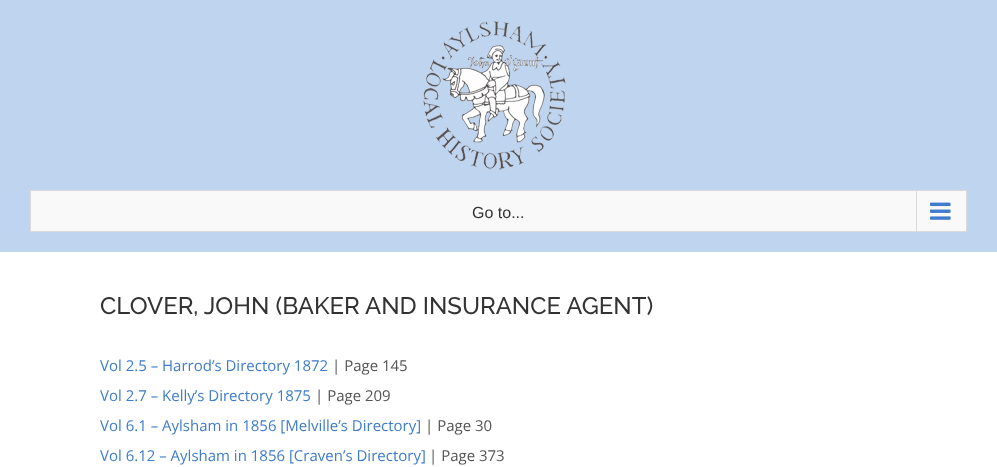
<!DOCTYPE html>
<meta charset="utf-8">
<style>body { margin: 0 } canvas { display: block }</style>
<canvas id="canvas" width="997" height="467"></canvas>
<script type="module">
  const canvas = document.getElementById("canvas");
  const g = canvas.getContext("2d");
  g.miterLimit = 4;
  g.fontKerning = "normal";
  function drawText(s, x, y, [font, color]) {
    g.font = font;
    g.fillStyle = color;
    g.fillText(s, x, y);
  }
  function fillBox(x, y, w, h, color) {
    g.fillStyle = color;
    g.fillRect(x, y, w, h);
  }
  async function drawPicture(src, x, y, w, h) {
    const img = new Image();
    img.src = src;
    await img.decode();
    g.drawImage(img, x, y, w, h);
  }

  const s1 = ["16px Liberation Sans", "#333333"];
  const s2 = ["500 23.9px Raleway", "#333333"];
  const s3 = ["15px Open Sans", "#3E7CCC"];
  const s4 = ["15px Open Sans", "#545454"];

  fillBox(0, 0, 997, 467, "#FFFFFF");
  fillBox(0, 0, 997, 252, "#BFD4EE");
  await drawPicture("pic1.png", 423, 21, 143, 149);
  g.fillStyle = "#F9F9F9";
  g.beginPath();
  g.rect(30.5, 190.5, 936, 41);
  g.fill();
  g.strokeStyle = "#DADADA";
  g.stroke();
  drawText("Go to...", 472, 218, s1);
  fillBox(916, 191, 1, 40, "#DADADA");
  await drawPicture("pic2.png", 930, 202, 21, 18);
  drawText("CLOVER, JOHN (BAKER AND INSURANCE AGENT)", 100, 314, s2);
  drawText("Vol 2.5 – Harrod’s Directory 1872", 100, 371, s3);
  drawText("| Page 145", 332, 371, s4);
  drawText("Vol 2.7 – Kelly’s Directory 1875", 100, 401, s3);
  drawText("| Page 209", 315, 401, s4);
  drawText("Vol 6.1 – Aylsham in 1856 [Melville’s Directory]", 100, 431, s3);
  drawText("| Page 30", 425, 431, s4);
  drawText("Vol 6.12 – Aylsham in 1856 [Craven’s Directory]", 100, 461, s3);
  drawText("| Page 373", 429, 461, s4);
</script>
